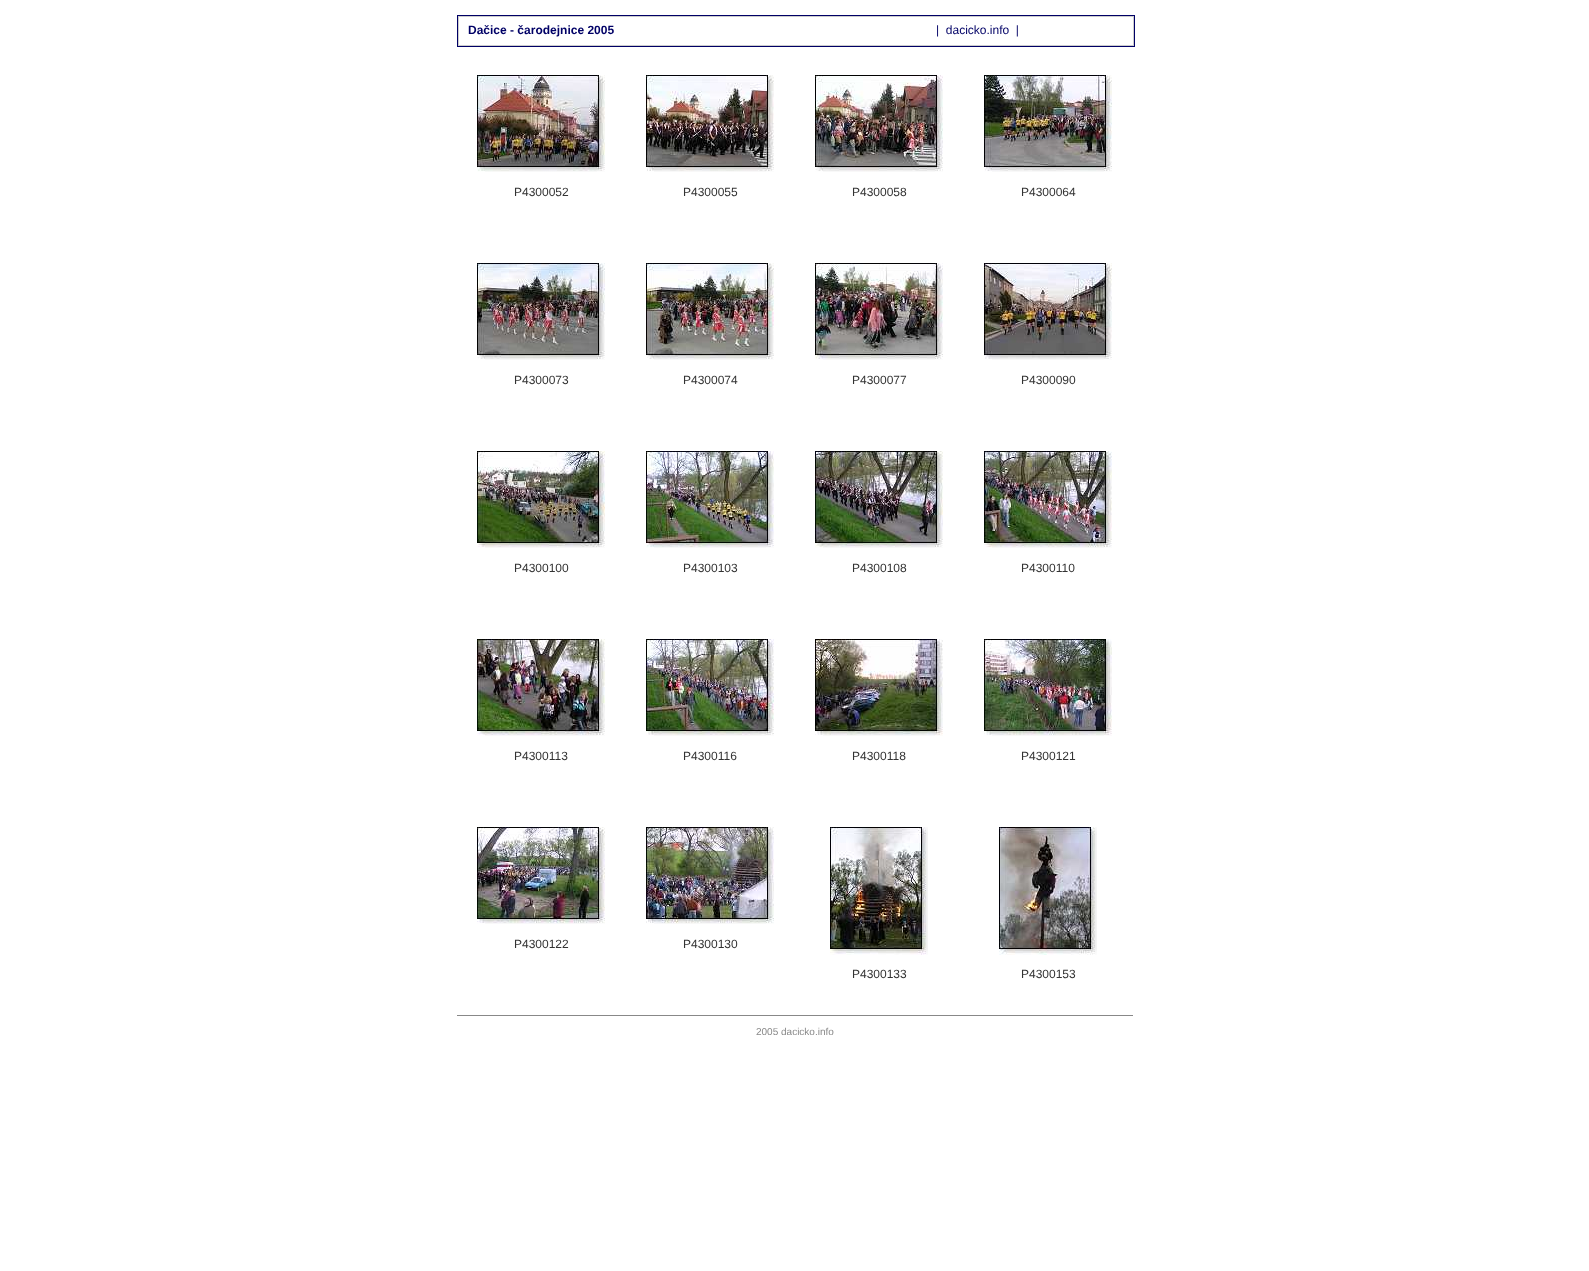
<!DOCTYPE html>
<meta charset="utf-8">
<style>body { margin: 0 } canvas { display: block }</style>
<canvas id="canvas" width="1589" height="1271"></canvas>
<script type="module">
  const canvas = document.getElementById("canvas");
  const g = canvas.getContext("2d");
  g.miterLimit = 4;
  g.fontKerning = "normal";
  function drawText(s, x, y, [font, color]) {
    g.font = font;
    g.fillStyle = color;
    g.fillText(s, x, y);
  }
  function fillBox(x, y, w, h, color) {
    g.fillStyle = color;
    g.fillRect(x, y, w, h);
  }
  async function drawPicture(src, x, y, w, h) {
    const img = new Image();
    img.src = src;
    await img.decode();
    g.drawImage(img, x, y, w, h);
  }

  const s1 = ["bold 12px Liberation Sans", "#000066"];
  const s2 = ["12px Liberation Sans", "#000066"];
  const s3 = ["12px Liberation Sans", "#333333"];
  const s4 = ["10px Liberation Sans", "#888888"];

  fillBox(0, 0, 1589, 1271, "#FFFFFF");
  g.strokeStyle = "#000066";
  g.strokeRect(457.5, 15.5, 677, 31);
  g.strokeStyle = "#CCCCCC";
  g.strokeRect(458.5, 16.5, 675, 29);
  drawText("Dačice - čarodejnice 2005", 468, 34, s1);
  drawText("|  dacicko.info  |", 936, 34, s2);
  await drawPicture("pic1.png", 477, 75, 128, 97);
  drawText("P4300052", 514, 196, s3);
  await drawPicture("pic2.png", 646, 75, 128, 97);
  drawText("P4300055", 683, 196, s3);
  await drawPicture("pic3.png", 815, 75, 128, 97);
  drawText("P4300058", 852, 196, s3);
  await drawPicture("pic4.png", 984, 75, 128, 97);
  drawText("P4300064", 1021, 196, s3);
  await drawPicture("pic5.png", 477, 263, 128, 97);
  drawText("P4300073", 514, 384, s3);
  await drawPicture("pic6.png", 646, 263, 128, 97);
  drawText("P4300074", 683, 384, s3);
  await drawPicture("pic7.png", 815, 263, 128, 97);
  drawText("P4300077", 852, 384, s3);
  await drawPicture("pic8.png", 984, 263, 128, 97);
  drawText("P4300090", 1021, 384, s3);
  await drawPicture("pic9.png", 477, 451, 128, 97);
  drawText("P4300100", 514, 572, s3);
  await drawPicture("pic10.png", 646, 451, 128, 97);
  drawText("P4300103", 683, 572, s3);
  await drawPicture("pic11.png", 815, 451, 128, 97);
  drawText("P4300108", 852, 572, s3);
  await drawPicture("pic12.png", 984, 451, 128, 97);
  drawText("P4300110", 1021, 572, s3);
  await drawPicture("pic13.png", 477, 639, 128, 97);
  drawText("P4300113", 514, 760, s3);
  await drawPicture("pic14.png", 646, 639, 128, 97);
  drawText("P4300116", 683, 760, s3);
  await drawPicture("pic15.png", 815, 639, 128, 97);
  drawText("P4300118", 852, 760, s3);
  await drawPicture("pic16.png", 984, 639, 128, 97);
  drawText("P4300121", 1021, 760, s3);
  await drawPicture("pic17.png", 477, 827, 128, 97);
  drawText("P4300122", 514, 948, s3);
  await drawPicture("pic18.png", 646, 827, 128, 97);
  drawText("P4300130", 683, 948, s3);
  await drawPicture("pic19.png", 830, 827, 98, 128);
  drawText("P4300133", 852, 978, s3);
  await drawPicture("pic20.png", 999, 827, 98, 128);
  drawText("P4300153", 1021, 978, s3);
  fillBox(457, 1015, 676, 1, "#888888");
  drawText("2005 dacicko.info", 756, 1035, s4);
</script>
